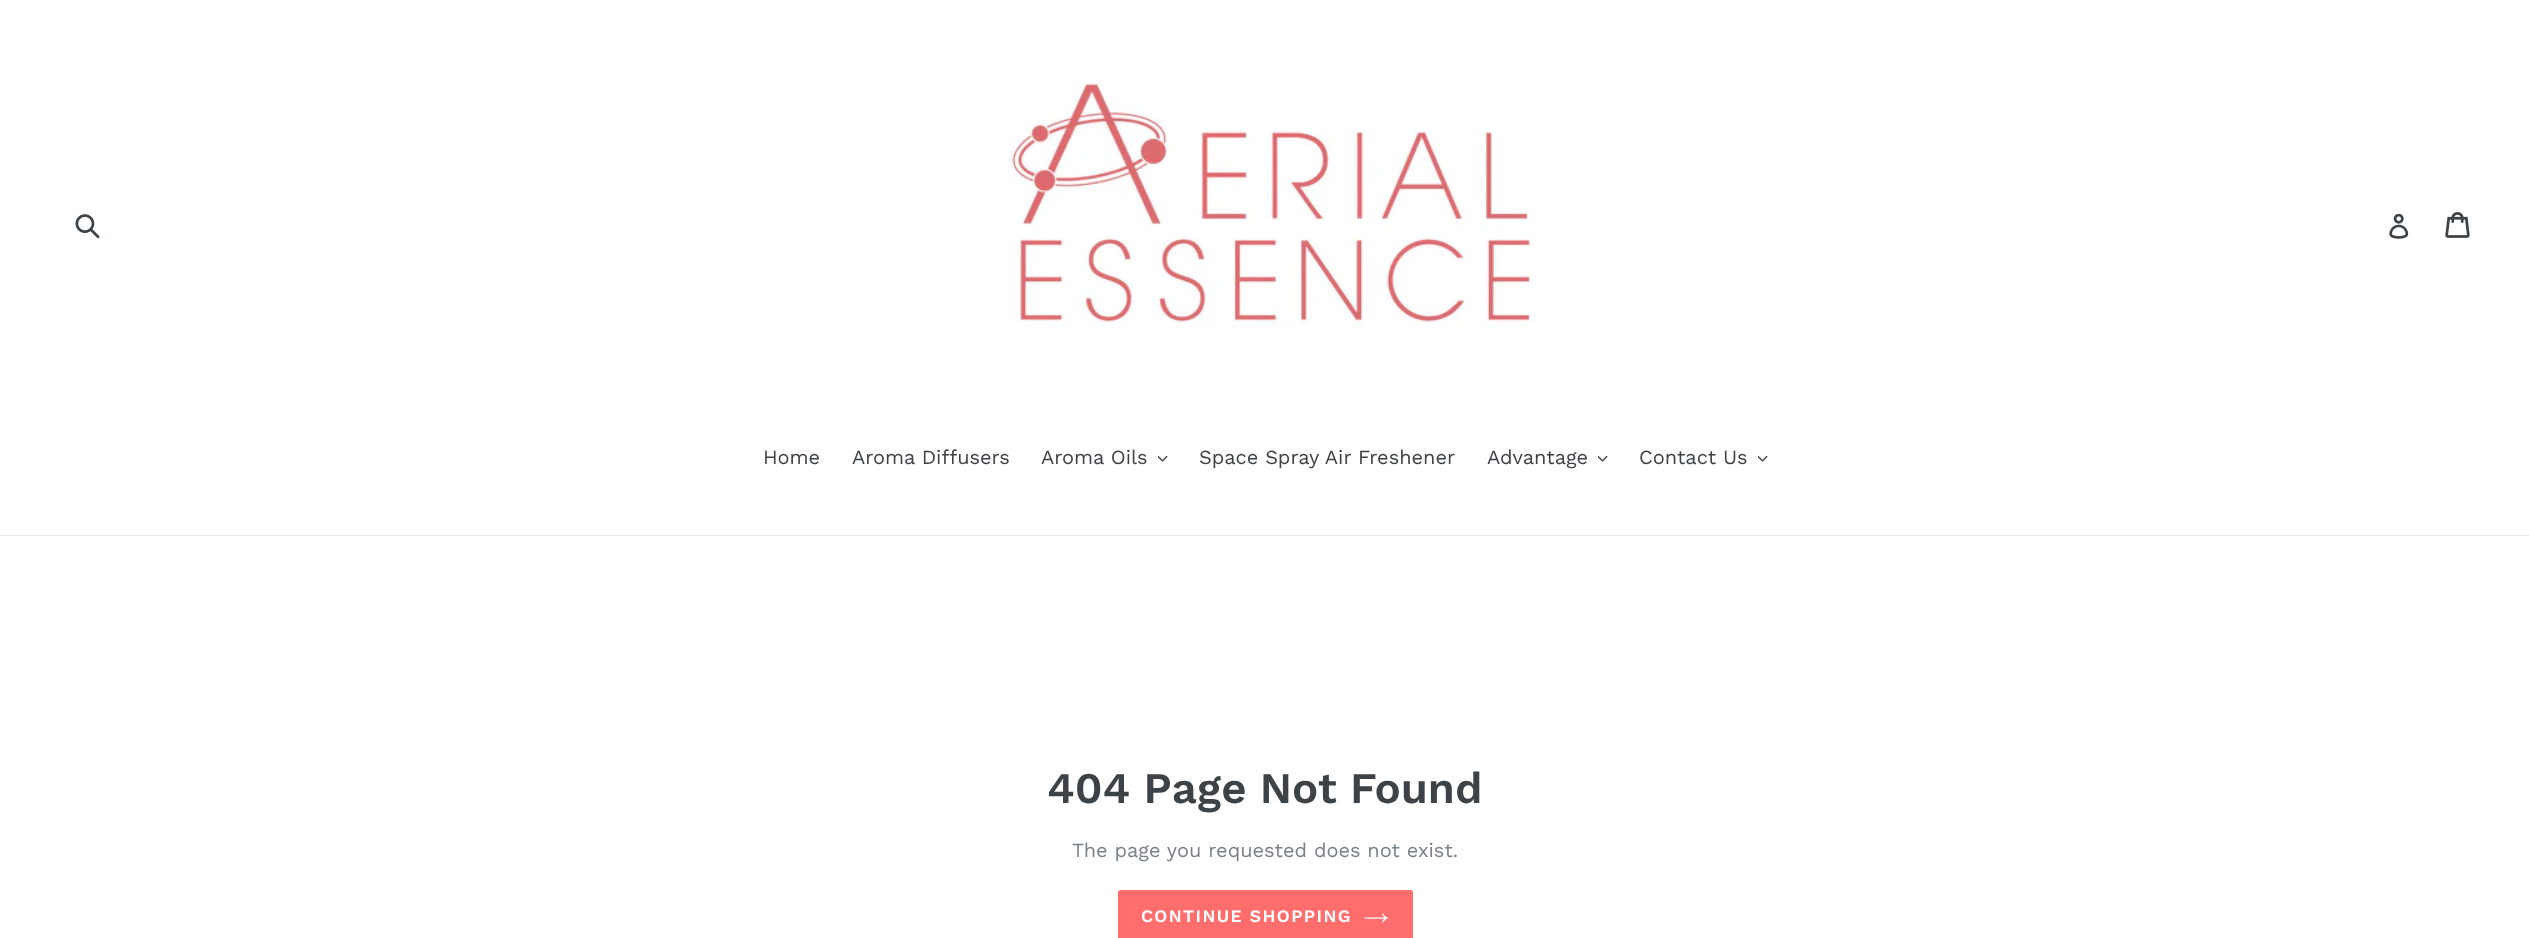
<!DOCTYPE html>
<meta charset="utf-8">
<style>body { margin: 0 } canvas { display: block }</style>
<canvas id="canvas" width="2529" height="938"></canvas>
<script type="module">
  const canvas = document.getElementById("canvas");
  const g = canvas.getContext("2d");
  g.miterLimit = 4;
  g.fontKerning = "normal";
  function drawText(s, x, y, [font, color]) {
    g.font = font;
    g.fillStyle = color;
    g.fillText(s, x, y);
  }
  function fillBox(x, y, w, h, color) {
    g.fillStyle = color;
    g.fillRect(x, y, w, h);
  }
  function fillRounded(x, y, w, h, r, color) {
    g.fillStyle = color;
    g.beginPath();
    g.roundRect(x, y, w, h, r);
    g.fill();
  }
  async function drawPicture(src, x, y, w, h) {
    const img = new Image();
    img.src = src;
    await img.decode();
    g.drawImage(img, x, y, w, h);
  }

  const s1 = ["20px Work Sans", "#3D4246"];
  const s2 = ["600 43.75px Work Sans", "#3D4246"];
  const s3 = ["20px Work Sans", "#788188"];
  const s4 = ["600 17.5px Work Sans", "#FFFFFF"];

  fillBox(0, 0, 2529, 938, "#FFFFFF");
  await drawPicture("pic1.png", 75, 214, 25, 25);
  await drawPicture("pic2.png", 1011, 78, 522, 250);
  await drawPicture("pic3.png", 2389, 214, 20, 25);
  await drawPicture("pic4.png", 2445, 212, 25, 26);
  fillBox(0, 535, 2529, 1, "#E8E9EB");
  drawText("Home", 763, 464, s1);
  drawText("Aroma Diffusers", 852, 464, s1);
  drawText("Aroma Oils", 1041, 464, s1);
  await drawPicture("pic5.png", 1158, 455, 10, 7);
  drawText("Space Spray Air Freshener", 1199, 464, s1);
  drawText("Advantage", 1487, 464, s1);
  await drawPicture("pic5.png", 1598, 455, 10, 7);
  drawText("Contact Us", 1639, 464, s1);
  await drawPicture("pic5.png", 1758, 455, 10, 7);
  drawText("404 Page Not Found", 1047, 803, s2);
  drawText("The page you requested does not exist.", 1072, 857, s3);
  fillRounded(1118, 890, 295, 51, 2.5, "#FF6D6D");
  g.letterSpacing = "1.4px";
  drawText("CONTINUE SHOPPING", 1141, 922, s4);
  await drawPicture("pic6.png", 1364, 913, 24, 10);
</script>
